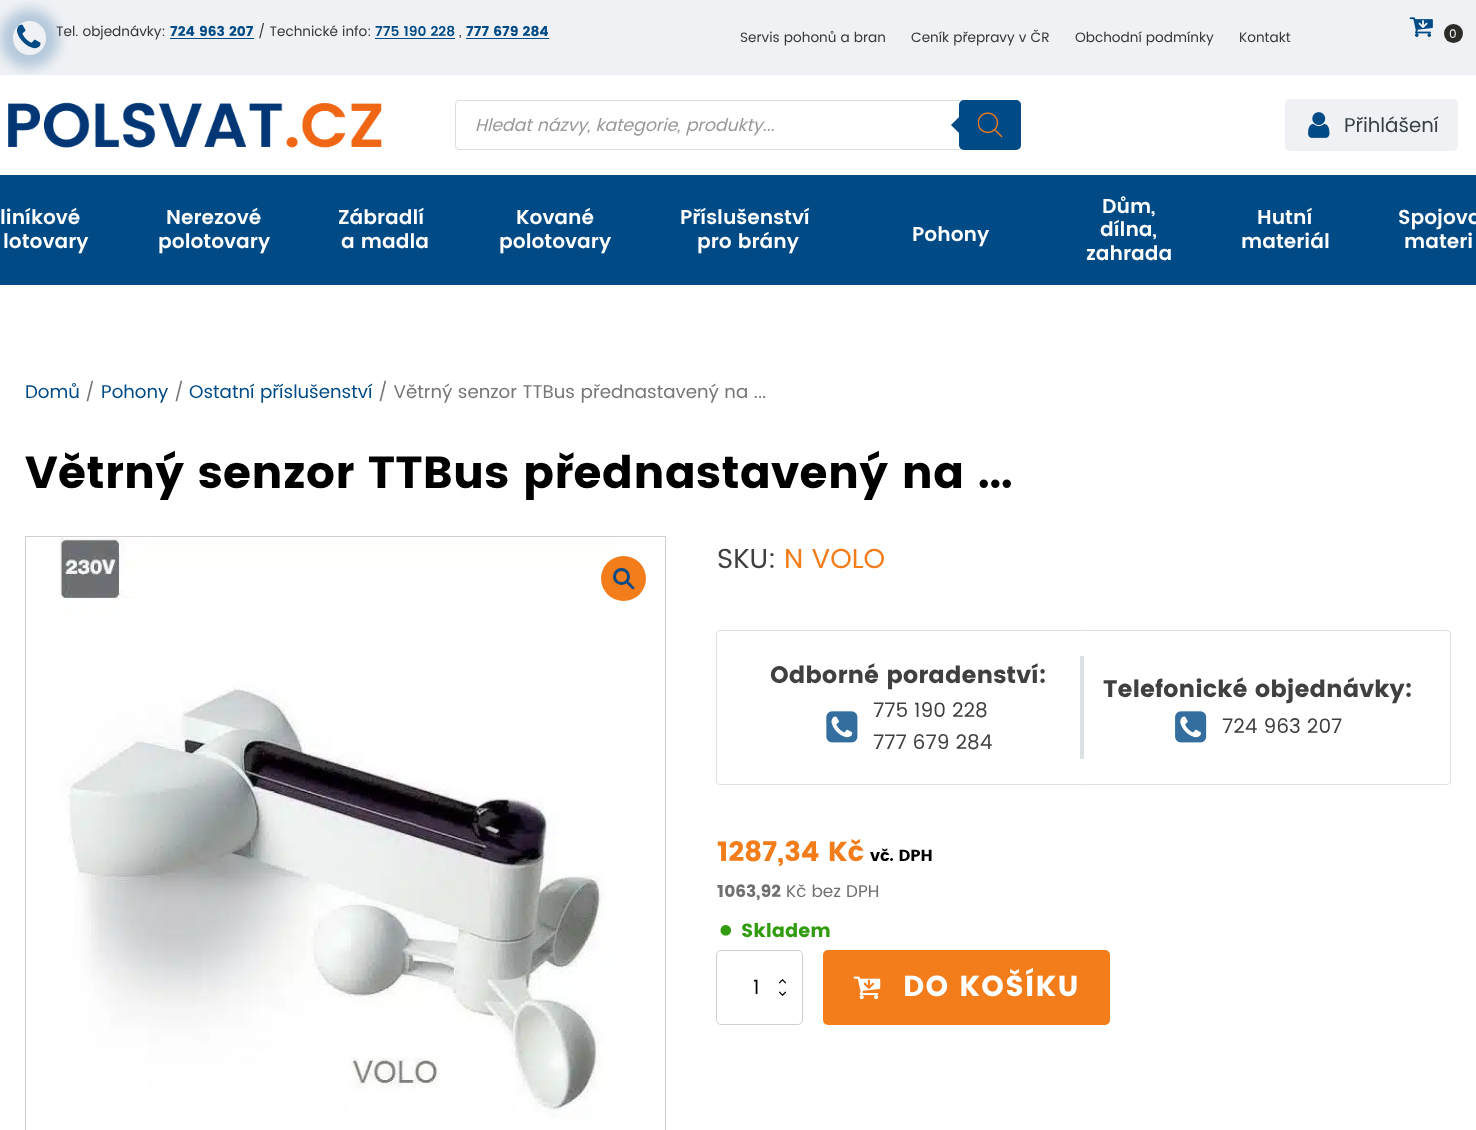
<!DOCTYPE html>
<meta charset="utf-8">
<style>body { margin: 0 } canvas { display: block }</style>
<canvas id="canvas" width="1476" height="1130"></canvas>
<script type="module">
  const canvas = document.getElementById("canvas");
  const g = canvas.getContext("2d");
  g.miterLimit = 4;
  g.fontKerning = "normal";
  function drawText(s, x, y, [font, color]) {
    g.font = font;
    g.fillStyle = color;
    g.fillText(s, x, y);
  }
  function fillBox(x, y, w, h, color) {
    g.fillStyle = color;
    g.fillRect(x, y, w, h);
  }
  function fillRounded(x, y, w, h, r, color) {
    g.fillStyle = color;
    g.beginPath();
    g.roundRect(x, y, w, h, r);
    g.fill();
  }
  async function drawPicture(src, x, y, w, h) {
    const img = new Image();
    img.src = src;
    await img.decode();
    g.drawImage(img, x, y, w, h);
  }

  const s1 = ["13.75px Poppins", "#383838"];
  const s2 = ["bold 13.75px Poppins", "#004A86"];
  const s3 = ["600 13.75px Poppins", "#004A86"];
  const s4 = ["12px Poppins", "#FFFFFF"];
  const s5 = ["italic 17.5px Poppins", "#999999"];
  const s6 = ["20px Poppins", "#374047"];
  const s7 = ["600 20px Poppins", "#FFFFFF"];
  const s8 = ["18.4px Poppins", "#004A86"];
  const s9 = ["18.4px Poppins", "#767676"];
  const s10 = ["bold 45px Poppins", "#000000"];
  const s11 = ["27.5px Poppins", "#404040"];
  const s12 = ["27.5px Poppins", "#F37C1B"];
  const s13 = ["bold 23.75px Poppins", "#404040"];
  const s14 = ["20px Poppins", "#404040"];
  const s15 = ["bold 27.5px Poppins", "#F37C1B"];
  const s16 = ["bold 16px Poppins", "#000000"];
  const s17 = ["bold 17px Poppins", "#707070"];
  const s18 = ["17px Poppins", "#707070"];
  const s19 = ["bold 35px Poppins", "#329C10"];
  const s20 = ["bold 19px Poppins", "#329C10"];
  const s21 = ["20px Poppins", "#000000"];
  const s22 = ["bold 28.75px Poppins", "#FFFFFF"];

  fillBox(0, 0, 1476, 1130, "#FFFFFF");
  fillBox(0, 0, 1476, 75, "#EFF1F5");
  g.save();
  g.beginPath();
  g.moveTo(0, 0);
  g.lineTo(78, 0);
  g.lineTo(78, 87);
  g.lineTo(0, 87);
  g.closePath();
  g.moveTo(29.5, 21);
  g.bezierCurveTo(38.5, 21, 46, 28.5, 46, 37.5);
  g.lineTo(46, 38.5);
  g.bezierCurveTo(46, 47.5, 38.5, 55, 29.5, 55);
  g.bezierCurveTo(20.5, 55, 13, 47.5, 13, 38.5);
  g.lineTo(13, 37.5);
  g.bezierCurveTo(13, 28.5, 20.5, 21, 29.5, 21);
  g.closePath();
  g.clip("evenodd");
  g.fillStyle = "rgba(51, 110, 158, 0.3)";
  g.filter = "blur(6px)";
  g.beginPath();
  g.roundRect(0, 9, 59, 59, 29.5);
  g.fill();
  g.filter = "none";
  g.restore();
  await drawPicture("pic1.png", 17, 24, 24, 25);
  drawText("Tel. objednávky:", 56, 36, s1);
  drawText("724 963 207", 170, 36, s2);
  fillBox(170, 38, 84, 1, "#004A86");
  drawText("/ Technické info:", 258, 36, s1);
  drawText("775 190 228", 375, 36, s3);
  fillBox(375, 38, 80, 1, "#004A86");
  drawText(",", 459, 36, s1);
  drawText("777 679 284", 466, 36, s2);
  fillBox(466, 38, 83, 1, "#004A86");
  drawText("Servis pohonů a bran", 740, 42, s1);
  drawText("Ceník přepravy v ČR", 911, 42, s1);
  drawText("Obchodní podmínky", 1075, 42, s1);
  drawText("Kontakt", 1239, 42, s1);
  await drawPicture("pic2.png", 1409, 17, 24, 20);
  g.fillStyle = "#2B2C28";
  g.beginPath();
  g.arc(1453.5, 33.5, 9.5, 0, Math.PI * 2);
  g.fill();
  drawText("0", 1449, 38, s4);
  fillBox(16, 75, 27, 3, "#FFFFFF");
  await drawPicture("pic3.png", 8, 102, 374, 46);
  g.beginPath();
  g.roundRect(455.5, 100.5, 565, 49, 3.5);
  g.strokeStyle = "#DDDDDD";
  g.stroke();
  drawText("Hledat názvy, kategorie, produkty...", 475, 131, s5);
  fillRounded(959, 100, 62, 50, 5, "#004A86");
  g.beginPath();
  g.moveTo(961, 115);
  g.lineTo(961, 135);
  g.lineTo(951, 125);
  g.closePath();
  g.fill();
  await drawPicture("pic4.png", 978, 112, 25, 26);
  fillRounded(1285, 99, 173, 52, 5, "#EFF1F5");
  await drawPicture("pic5.png", 1308, 112, 22, 26);
  drawText("Přihlášení", 1344, 132, s6);
  fillBox(0, 175, 1476, 110, "#004A86");
  drawText("liníkové", 0, 224, s7);
  drawText("lotovary", 3, 248, s7);
  drawText("Nerezové", 166, 224, s7);
  drawText("polotovary", 158, 248, s7);
  drawText("Zábradlí", 338, 224, s7);
  drawText("a madla", 341, 248, s7);
  drawText("Kované", 516, 224, s7);
  drawText("polotovary", 499, 248, s7);
  drawText("Příslušenství", 680, 224, s7);
  drawText("pro brány", 697, 248, s7);
  drawText("Pohony", 912, 241, s7);
  drawText("Dům,", 1102, 213, s7);
  drawText("dílna,", 1100, 236, s7);
  drawText("zahrada", 1086, 260, s7);
  drawText("Hutní", 1257, 224, s7);
  drawText("materiál", 1241, 248, s7);
  drawText("Spojova", 1398, 224, s7);
  drawText("materi", 1404, 248, s7);
  drawText("Domů", 25, 398, s8);
  drawText("/", 85, 398, s9);
  drawText("Pohony", 101, 398, s8);
  drawText("/", 174, 398, s9);
  drawText("Ostatní příslušenství", 189, 398, s8);
  drawText("/ Větrný senzor TTBus přednastavený na ...", 378, 398, s9);
  drawText("Větrný senzor TTBus přednastavený na ...", 25, 488, s10);
  g.strokeStyle = "#D3CED2";
  g.strokeRect(25.5, 536.5, 640, 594);
  await drawPicture("pic6.png", 59, 537, 559, 582);
  g.fillStyle = "#F37C1B";
  g.beginPath();
  g.arc(623.5, 578.5, 22.5, 0, Math.PI * 2);
  g.fill();
  g.beginPath();
  g.arc(621.5, 576.5, 7, 0, Math.PI * 2);
  g.strokeStyle = "#004A86";
  g.lineWidth = 3;
  g.stroke();
  g.fillStyle = "#004A86";
  g.beginPath();
  g.moveTo(627, 582);
  g.bezierCurveTo(628.5, 580.5, 630.5, 583.5, 631.5, 584.5);
  g.bezierCurveTo(632, 585.5, 635.5, 587.5, 634, 589);
  g.bezierCurveTo(632.5, 590.5, 630.5, 587, 629.5, 586.5);
  g.bezierCurveTo(629, 585.5, 625.5, 583.5, 627, 582);
  g.closePath();
  g.fill();
  drawText("SKU:", 717, 568, s11);
  drawText("N VOLO", 784, 568, s12);
  g.beginPath();
  g.roundRect(716.5, 630.5, 734, 154, 3.5);
  g.strokeStyle = "#DEE1E3";
  g.lineWidth = 1;
  g.stroke();
  fillBox(1080, 656, 4, 103, "#DEE1E3");
  drawText("Odborné poradenství:", 770, 683, s13);
  await drawPicture("pic7.png", 826, 711, 32, 32);
  drawText("775 190 228", 873, 717, s14);
  drawText("777 679 284", 873, 749, s14);
  drawText("Telefonické objednávky:", 1103, 697, s13);
  await drawPicture("pic8.png", 1175, 711, 32, 32);
  drawText("724 963 207", 1222, 733, s14);
  drawText("1287,34 Kč", 717, 861, s15);
  drawText("vč. DPH", 870, 861, s16);
  drawText("1063,92", 717, 897, s17);
  drawText("Kč bez DPH", 786, 897, s18);
  drawText("•", 717, 942, s19);
  drawText("Skladem", 741, 937, s20);
  await drawPicture("pic9.png", 779, 979, 7, 5);
  await drawPicture("pic10.png", 779, 991, 7, 5);
  g.beginPath();
  g.roundRect(716.5, 950.5, 86, 74, 4.5);
  g.strokeStyle = "#D3CED2";
  g.stroke();
  drawText("1", 753, 994, s21);
  fillRounded(823, 950, 287, 75, 5, "#F37C1B");
  await drawPicture("pic11.png", 853, 976, 28, 24);
  g.letterSpacing = "1.25px";
  drawText("DO KOŠÍKU", 903, 996, s22);
</script>
